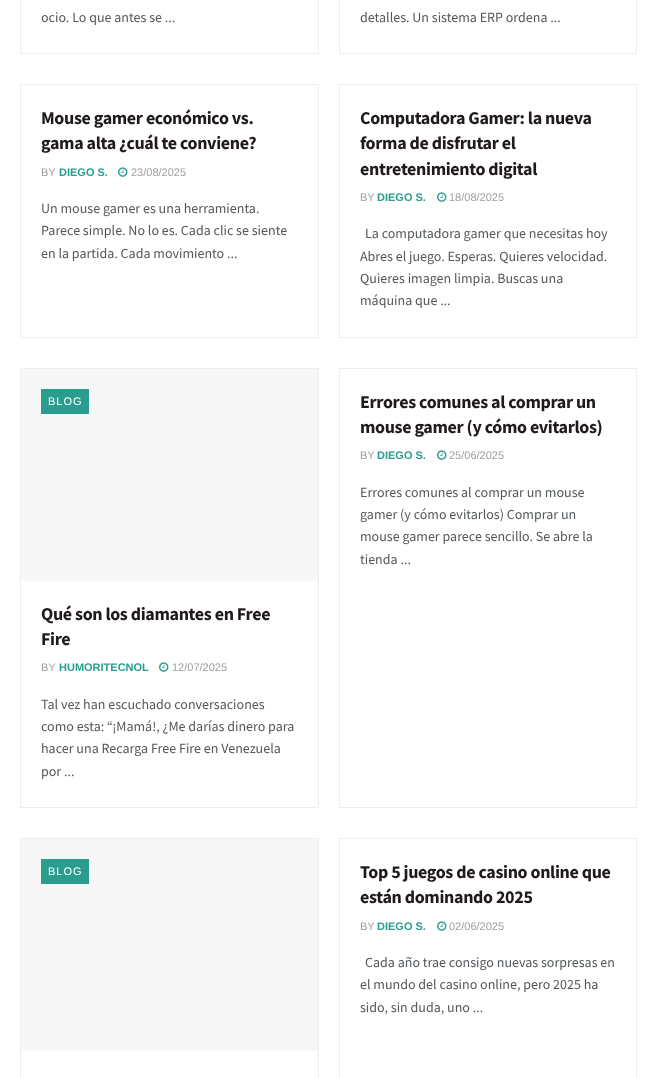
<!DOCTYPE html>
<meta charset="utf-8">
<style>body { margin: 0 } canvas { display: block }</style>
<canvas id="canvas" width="657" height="1078"></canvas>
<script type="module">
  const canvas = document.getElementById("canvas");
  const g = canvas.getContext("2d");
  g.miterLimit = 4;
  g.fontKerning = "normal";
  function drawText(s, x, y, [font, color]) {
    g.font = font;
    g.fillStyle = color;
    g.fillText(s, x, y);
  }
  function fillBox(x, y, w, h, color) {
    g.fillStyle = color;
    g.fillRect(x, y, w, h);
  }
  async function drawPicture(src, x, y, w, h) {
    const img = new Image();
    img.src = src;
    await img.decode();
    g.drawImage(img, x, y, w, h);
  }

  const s1 = ["14px Source Sans Pro", "#53585C"];
  const s2 = ["bold 18px Source Sans Pro", "#211A1D"];
  const s3 = ["11px Liberation Sans", "#A0A0A0"];
  const s4 = ["bold 11px Liberation Sans", "#2A9D8F"];
  const s5 = ["11px Liberation Sans", "#FFFFFF"];

  fillBox(0, 0, 657, 1078, "#FFFFFF");
  g.strokeStyle = "#EEEEEE";
  g.strokeRect(20.5, -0.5, 298, 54);
  drawText("ocio. Lo que antes se ...", 41, 22, s1);
  g.strokeRect(339.5, -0.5, 297, 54);
  drawText("detalles. Un sistema ERP ordena ...", 360, 22, s1);
  g.strokeRect(20.5, 84.5, 298, 253);
  g.letterSpacing = "-0.35px";
  drawText("Mouse gamer económico vs.", 41, 124, s2);
  drawText("gama alta ¿cuál te conviene?", 41, 149, s2);
  g.letterSpacing = "0px";
  drawText("BY", 41, 176, s3);
  drawText("DIEGO S.", 59, 176, s4);
  await drawPicture("pic1.png", 118, 167, 10, 10);
  drawText("23/08/2025", 131, 176, s3);
  drawText("Un mouse gamer es una herramienta.", 41, 213, s1);
  drawText("Parece simple. No lo es. Cada clic se siente", 41, 235, s1);
  drawText("en la partida. Cada movimiento ...", 41, 258, s1);
  g.strokeRect(339.5, 84.5, 297, 253);
  g.letterSpacing = "-0.35px";
  drawText("Computadora Gamer: la nueva", 360, 124, s2);
  drawText("forma de disfrutar el", 360, 149, s2);
  drawText("entretenimiento digital", 360, 175, s2);
  g.letterSpacing = "0px";
  drawText("BY", 360, 201, s3);
  drawText("DIEGO S.", 377, 201, s4);
  await drawPicture("pic1.png", 437, 192, 10, 10);
  drawText("18/08/2025", 449, 201, s3);
  drawText("La computadora gamer que necesitas hoy", 365, 238, s1);
  drawText("Abres el juego. Esperas. Quieres velocidad.", 360, 261, s1);
  drawText("Quieres imagen limpia. Buscas una", 360, 283, s1);
  drawText("máquina que ...", 360, 305, s1);
  g.strokeRect(20.5, 368.5, 298, 439);
  fillBox(21, 369, 297, 212, "#F7F7F7");
  fillBox(41, 389, 48, 25, "#2A9D8F");
  g.letterSpacing = "1px";
  drawText("BLOG", 48, 405, s5);
  g.letterSpacing = "-0.35px";
  drawText("Qué son los diamantes en Free", 41, 620, s2);
  drawText("Fire", 41, 645, s2);
  g.letterSpacing = "0px";
  drawText("BY", 41, 671, s3);
  drawText("HUMORITECNOL", 59, 671, s4);
  await drawPicture("pic1.png", 159, 662, 10, 10);
  drawText("12/07/2025", 172, 671, s3);
  drawText("Tal vez han escuchado conversaciones", 41, 709, s1);
  drawText("como esta: “¡Mamá!, ¿Me darías dinero para", 41, 731, s1);
  drawText("hacer una Recarga Free Fire en Venezuela", 41, 753, s1);
  drawText("por ...", 41, 776, s1);
  g.strokeRect(339.5, 368.5, 297, 439);
  g.letterSpacing = "-0.35px";
  drawText("Errores comunes al comprar un", 360, 408, s2);
  drawText("mouse gamer (y cómo evitarlos)", 360, 433, s2);
  g.letterSpacing = "0px";
  drawText("BY", 360, 459, s3);
  drawText("DIEGO S.", 377, 459, s4);
  await drawPicture("pic1.png", 437, 450, 10, 10);
  drawText("25/06/2025", 449, 459, s3);
  drawText("Errores comunes al comprar un mouse", 360, 497, s1);
  drawText("gamer (y cómo evitarlos) Comprar un", 360, 519, s1);
  drawText("mouse gamer parece sencillo. Se abre la", 360, 541, s1);
  drawText("tienda ...", 360, 564, s1);
  g.strokeRect(20.5, 838.5, 298, 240);
  fillBox(21, 839, 297, 212, "#F7F7F7");
  fillBox(41, 859, 48, 25, "#2A9D8F");
  g.letterSpacing = "1px";
  drawText("BLOG", 48, 875, s5);
  g.strokeRect(339.5, 838.5, 297, 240);
  g.letterSpacing = "-0.35px";
  drawText("Top 5 juegos de casino online que", 360, 878, s2);
  drawText("están dominando 2025", 360, 903, s2);
  g.letterSpacing = "0px";
  drawText("BY", 360, 930, s3);
  drawText("DIEGO S.", 377, 930, s4);
  await drawPicture("pic1.png", 437, 921, 10, 10);
  drawText("02/06/2025", 449, 930, s3);
  drawText("Cada año trae consigo nuevas sorpresas en", 365, 967, s1);
  drawText("el mundo del casino online, pero 2025 ha", 360, 989, s1);
  drawText("sido, sin duda, uno ...", 360, 1012, s1);
</script>
